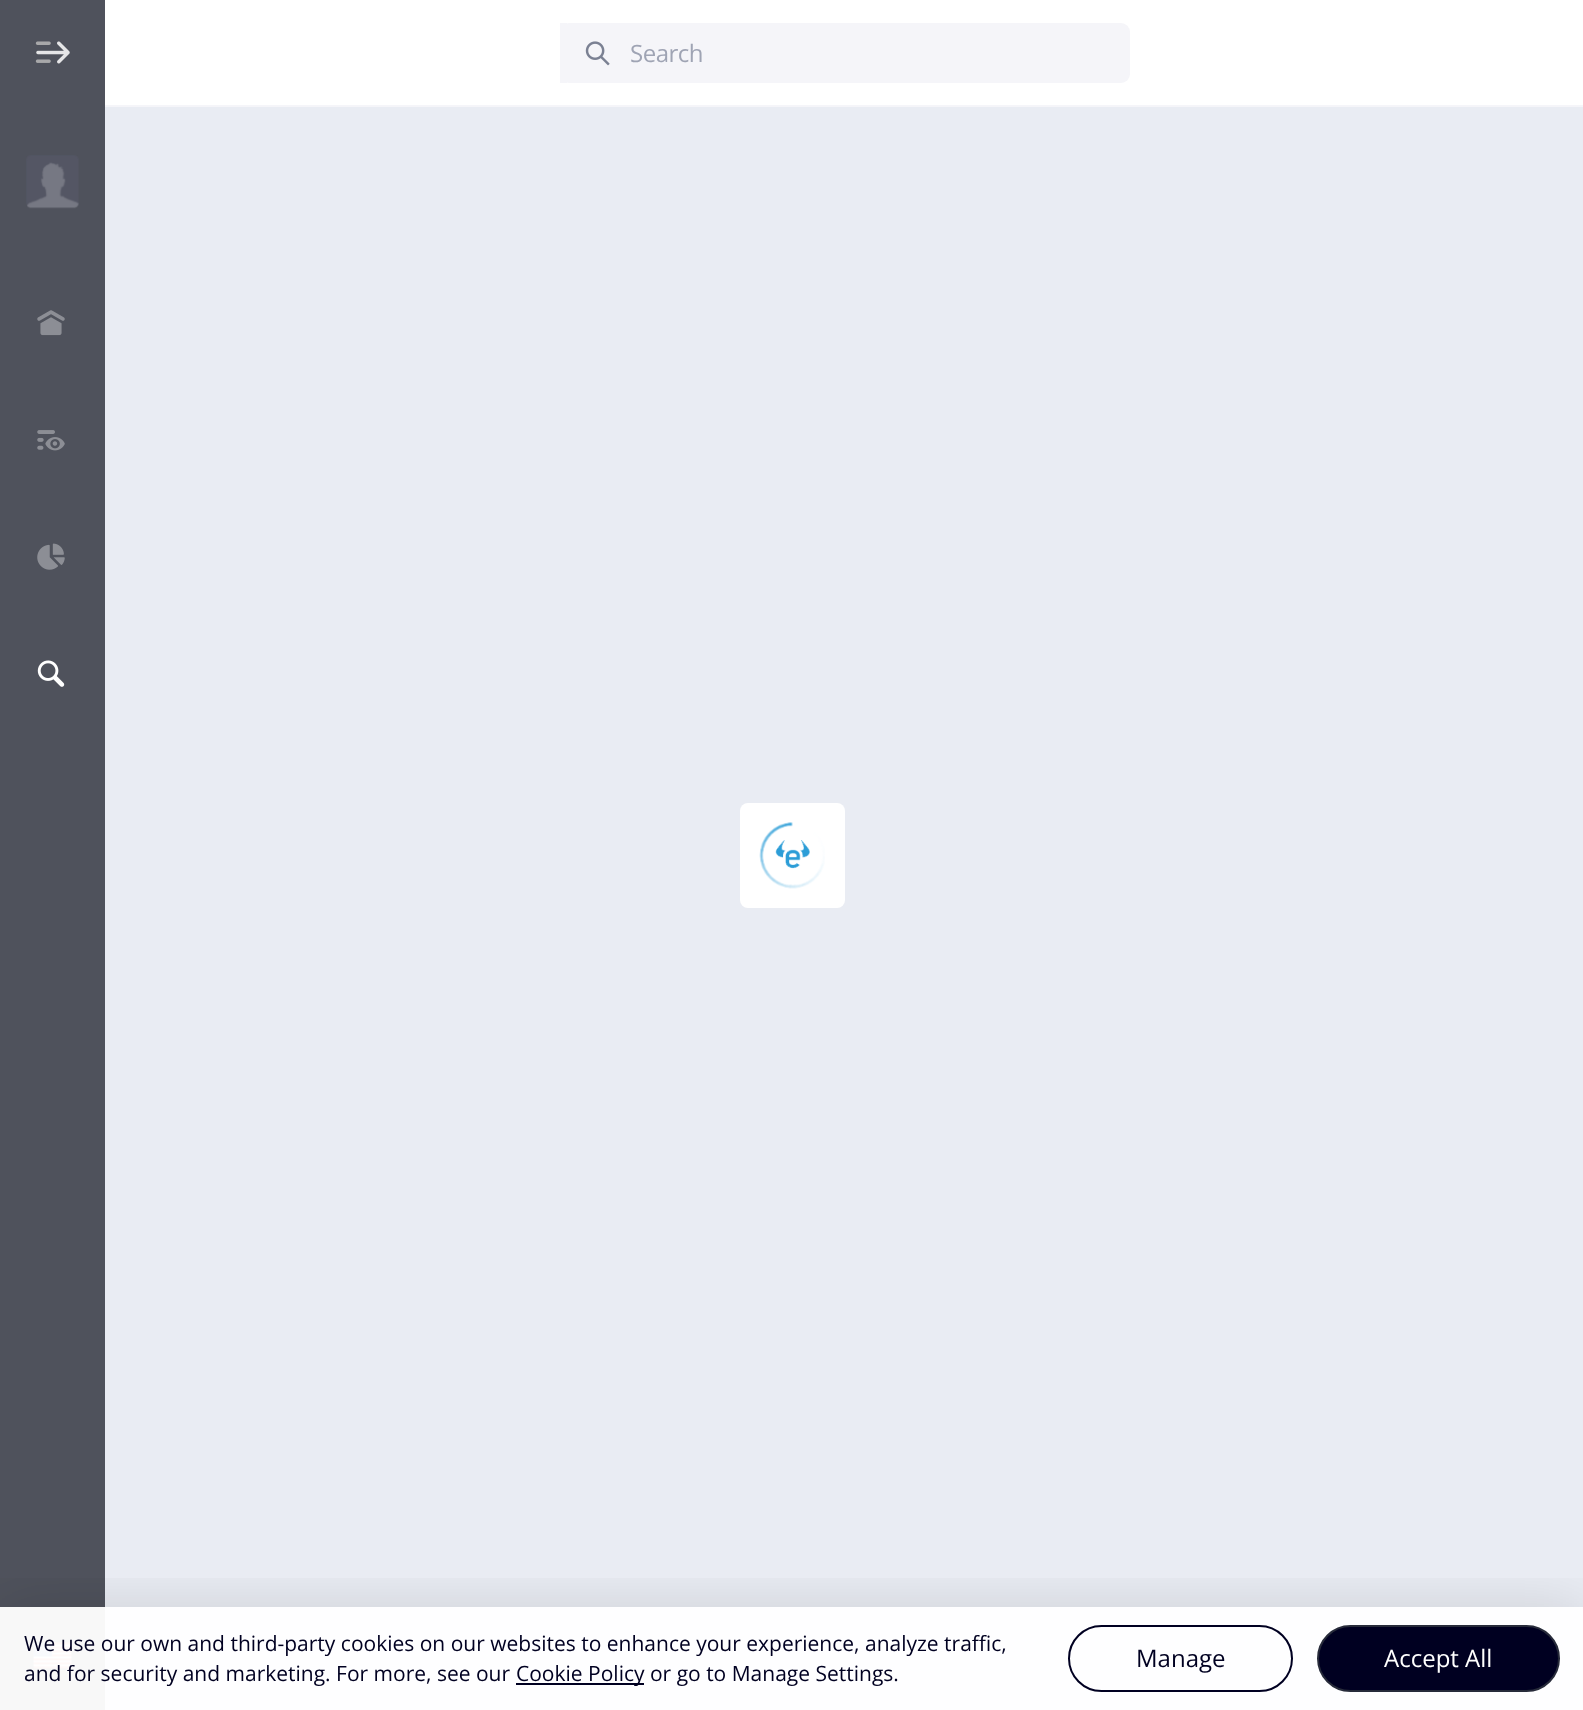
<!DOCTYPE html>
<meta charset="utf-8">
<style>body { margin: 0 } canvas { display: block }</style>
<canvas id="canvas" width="1583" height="1710"></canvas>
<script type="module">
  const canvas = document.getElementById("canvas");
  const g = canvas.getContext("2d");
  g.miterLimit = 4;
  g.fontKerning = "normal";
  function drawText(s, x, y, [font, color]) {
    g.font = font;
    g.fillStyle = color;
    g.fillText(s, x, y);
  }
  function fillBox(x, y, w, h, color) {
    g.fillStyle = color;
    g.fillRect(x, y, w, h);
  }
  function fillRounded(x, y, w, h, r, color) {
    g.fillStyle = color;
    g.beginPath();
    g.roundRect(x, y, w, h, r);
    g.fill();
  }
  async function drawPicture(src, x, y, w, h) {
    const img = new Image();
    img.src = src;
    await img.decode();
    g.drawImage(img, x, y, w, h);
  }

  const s1 = ["24px Open Sans", "#9FA4B4"];
  const s2 = ["21px Open Sans", "#000021"];
  const s3 = ["24px Open Sans", "#000021"];
  const s4 = ["24px Open Sans", "#FFFFFF"];

  fillBox(0, 0, 1583, 1710, "#E9ECF3");
  fillBox(105, 1607, 1478, 103, "#FEFEFF");
  fillBox(0, 0, 105, 1607, "#4F525C");
  fillBox(0, 1607, 105, 103, "#F8F8F8");
  await drawPicture("pic1.png", 35, 41, 35, 23);
  await drawPicture("pic2.png", 26, 155, 53, 54);
  await drawPicture("pic3.png", 37, 310, 28, 26);
  await drawPicture("pic4.png", 37, 430, 28, 21);
  await drawPicture("pic5.png", 37, 543, 28, 27);
  await drawPicture("pic6.png", 37, 660, 28, 27);
  await drawPicture("pic7.png", 33, 1642, 39, 27);
  fillBox(105, 0, 1478, 105, "#FFFFFF");
  fillBox(105, 105, 1478, 2, "#F5F5F9");
  fillRounded(560, 23, 570, 60, 9, "#F5F5F9");
  fillBox(560, 23, 7, 60, "#F5F5F9");
  await drawPicture("pic8.png", 585, 41, 25, 25);
  g.letterSpacing = "-0.5px";
  drawText("Search", 630, 62, s1);
  fillRounded(740, 803, 105, 105, 8, "#FFFFFF");
  await drawPicture("pic10.png", 775, 840, 35, 29);
  await drawPicture("pic9.png", 759, 822, 66, 67);
  g.save();
  g.beginPath();
  g.rect(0, 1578, 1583, 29);
  g.clip();
  g.fillStyle = "rgba(0, 0, 0, 0.12)";
  g.filter = "blur(30px)";
  g.beginPath();
  g.rect(0, 1607, 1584, 103);
  g.fill();
  g.filter = "none";
  g.restore();
  g.letterSpacing = "0px";
  drawText("We use our own and third-party cookies on our websites to enhance your experience, analyze traffic,", 24, 1651, s2);
  drawText("and for security and marketing. For more, see our", 24, 1681, s2);
  fillBox(516, 1683, 128, 2, "#000021");
  drawText("Cookie Policy or go to Manage Settings.", 516, 1681, s2);
  g.beginPath();
  g.roundRect(1069, 1626, 223, 65, 32.5);
  g.strokeStyle = "#000021";
  g.lineWidth = 2;
  g.stroke();
  drawText("Manage", 1136, 1667, s3);
  g.beginPath();
  g.roundRect(1318, 1626, 241, 65, 32.5);
  g.fill();
  g.strokeStyle = "#272B3A";
  g.stroke();
  drawText("Accept All", 1384, 1667, s4);
</script>
